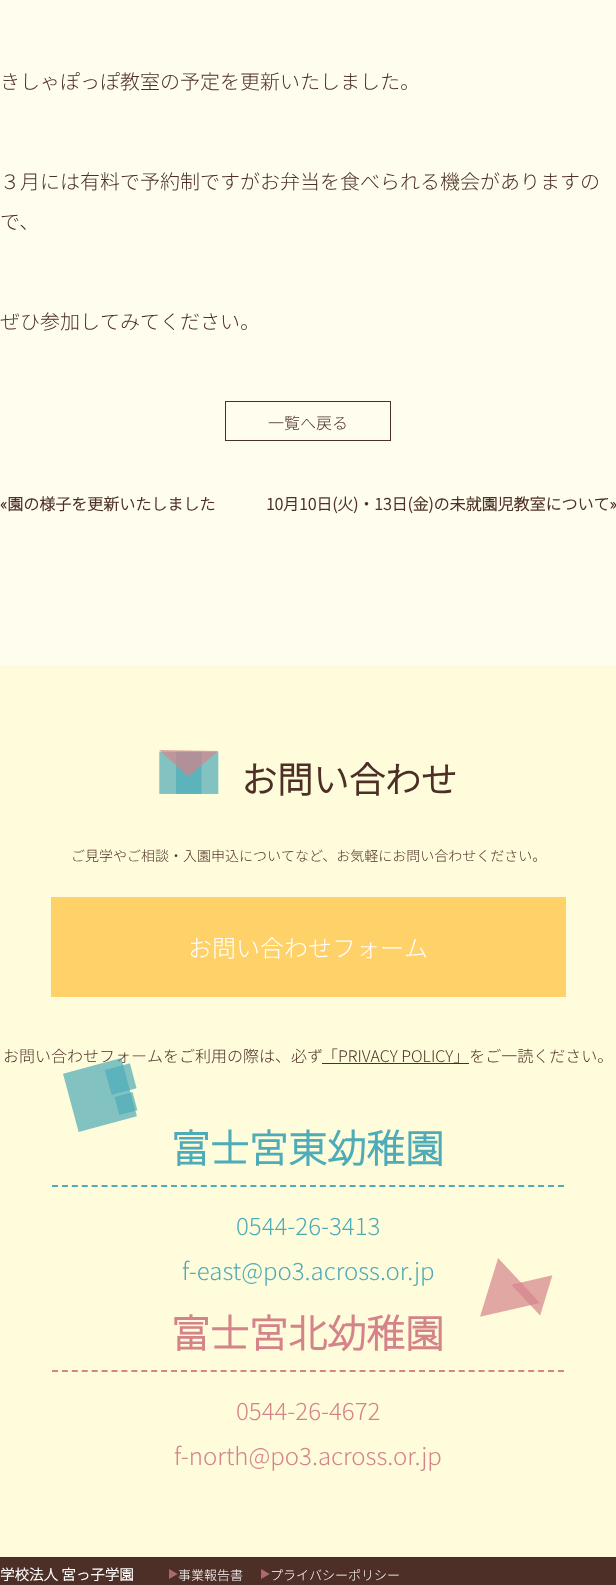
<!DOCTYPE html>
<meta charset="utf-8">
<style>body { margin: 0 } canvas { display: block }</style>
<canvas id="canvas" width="616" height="1585"></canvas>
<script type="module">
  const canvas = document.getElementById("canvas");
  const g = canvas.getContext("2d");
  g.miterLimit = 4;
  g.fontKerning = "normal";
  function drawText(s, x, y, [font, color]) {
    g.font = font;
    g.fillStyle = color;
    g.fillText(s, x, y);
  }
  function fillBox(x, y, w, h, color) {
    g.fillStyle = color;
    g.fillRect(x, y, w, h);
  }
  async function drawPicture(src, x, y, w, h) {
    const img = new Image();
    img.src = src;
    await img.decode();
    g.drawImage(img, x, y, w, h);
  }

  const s1 = ["100 20px Noto Sans JP", "#4D2F27"];
  const s2 = ["100 16px Noto Sans JP", "#4D2F27"];
  const s3 = ["bold 16px Noto Sans JP", "#4D2F27"];
  const s4 = ["bold 36px Noto Sans JP", "#4D2F27"];
  const s5 = ["100 14px Noto Sans JP", "#4D2F27"];
  const s6 = ["100 24px Noto Sans JP", "#FFFFFF"];
  const s7 = ["bold 39px Noto Sans JP", "#4EABB8"];
  const s8 = ["100 24px Noto Sans JP", "#4EABB8"];
  const s9 = ["bold 39px Noto Sans JP", "#D5838A"];
  const s10 = ["100 24px Noto Sans JP", "#D5838A"];
  const s11 = ["bold 14.5px Noto Sans JP", "#FFFFFF"];
  const s12 = ["100 13px Noto Sans JP", "#FFFFFF"];

  fillBox(0, 0, 616, 1585, "#FFFEEE");
  drawText("きしゃぽっぽ教室の予定を更新いたしました。", 0, 89, s1);
  drawText("３月には有料で予約制ですがお弁当を食べられる機会がありますの", 0, 189, s1);
  drawText("で、", 0, 229, s1);
  drawText("ぜひ参加してみてください。", 0, 329, s1);
  g.strokeStyle = "#4D2F27";
  g.strokeRect(225.5, 401.5, 165, 39);
  drawText("一覧へ戻る", 268, 429, s2);
  drawText("«園の様子を更新いたしました", 0, 510, s3);
  drawText("10月10日(火)・13日(金)の未就園児教室について»", 266, 510, s3);
  fillBox(0, 665, 616, 892, "#FFFCDB");
  await drawPicture("pic1.png", 159, 750, 60, 44);
  drawText("お問い合わせ", 241, 793, s4);
  drawText("ご見学やご相談・入園申込についてなど、お気軽にお問い合わせください。", 71, 861, s5);
  fillBox(51, 897, 515, 100, "#FFD169");
  drawText("お問い合わせフォーム", 188, 957, s6);
  drawText("お問い合わせフォームをご利用の際は、必ず", 3, 1062, s2);
  fillBox(322, 1063, 147, 1, "#4D2F27");
  drawText("「PRIVACY POLICY」をご一読ください。", 322, 1062, s2);
  await drawPicture("pic2.png", 63, 1058, 75, 74);
  g.beginPath();
  g.moveTo(52, 1186);
  g.lineTo(564, 1186);
  g.strokeStyle = "#4EABB8";
  g.lineWidth = 2;
  g.setLineDash([6, 3.92]);
  g.stroke();
  drawText("富士宮東幼稚園", 171, 1163, s7);
  drawText("0544-26-3413", 236, 1235, s8);
  drawText("f-east@po3.across.or.jp", 182, 1280, s8);
  await drawPicture("pic3.png", 480, 1258, 73, 59);
  g.beginPath();
  g.moveTo(52, 1371);
  g.lineTo(564, 1371);
  g.strokeStyle = "#D5838A";
  g.stroke();
  drawText("富士宮北幼稚園", 171, 1348, s9);
  drawText("0544-26-4672", 236, 1420, s10);
  drawText("f-north@po3.across.or.jp", 174, 1465, s10);
  fillBox(0, 1557, 616, 28, "#4D2F27");
  drawText("学校法人 宮っ子学園", 0, 1580, s11);
  await drawPicture("pic4.png", 169, 1569, 9, 10);
  drawText("事業報告書", 178, 1580, s12);
  await drawPicture("pic4.png", 261, 1569, 9, 10);
  drawText("プライバシーポリシー", 270, 1580, s12);
</script>
